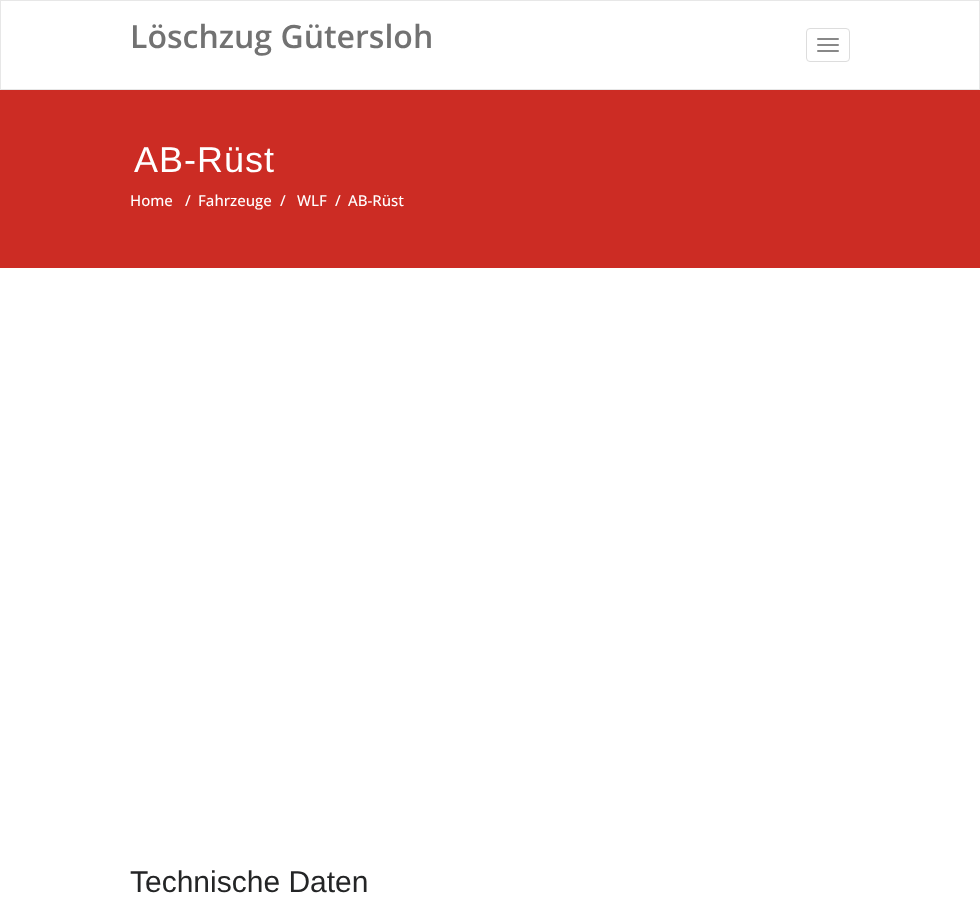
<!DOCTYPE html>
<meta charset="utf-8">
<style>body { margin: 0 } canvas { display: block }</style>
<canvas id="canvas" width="980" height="909"></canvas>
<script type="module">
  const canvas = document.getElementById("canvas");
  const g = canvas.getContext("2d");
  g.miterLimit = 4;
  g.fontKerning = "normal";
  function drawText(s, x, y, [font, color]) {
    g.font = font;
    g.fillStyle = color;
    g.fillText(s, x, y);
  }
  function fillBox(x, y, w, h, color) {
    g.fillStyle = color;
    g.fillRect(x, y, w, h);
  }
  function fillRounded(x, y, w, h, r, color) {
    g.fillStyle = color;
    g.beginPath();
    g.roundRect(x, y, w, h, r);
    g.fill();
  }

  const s1 = ["600 32px Open Sans", "#727272"];
  const s2 = ["36px Liberation Sans", "#FFFFFF"];
  const s3 = ["500 15px Open Sans", "#FFFFFF"];
  const s4 = ["30px Liberation Sans", "#242526"];

  fillBox(0, 0, 980, 909, "#FFFFFF");
  g.strokeStyle = "#E7E7E7";
  g.strokeRect(0.5, 0.5, 979, 89);
  drawText("Löschzug Gütersloh", 130, 48, s1);
  g.beginPath();
  g.roundRect(806.5, 28.5, 43, 33, 3.5);
  g.strokeStyle = "#DDDDDD";
  g.stroke();
  fillRounded(817, 38, 22, 2, 1, "#888888");
  fillRounded(817, 44, 22, 2, 1, "#888888");
  fillRounded(817, 50, 22, 2, 1, "#888888");
  fillBox(0, 90, 980, 178, "#CC2C24");
  g.letterSpacing = "1px";
  drawText("AB-Rüst", 134, 172, s2);
  g.letterSpacing = "0px";
  drawText("Home", 130, 206, s3);
  drawText("/", 185, 206, s3);
  drawText("Fahrzeuge", 198, 206, s3);
  drawText("/", 280, 206, s3);
  drawText("WLF", 297, 206, s3);
  drawText("/", 335, 206, s3);
  drawText("AB-Rüst", 348, 206, s3);
  drawText("Technische Daten", 130, 892, s4);
</script>
